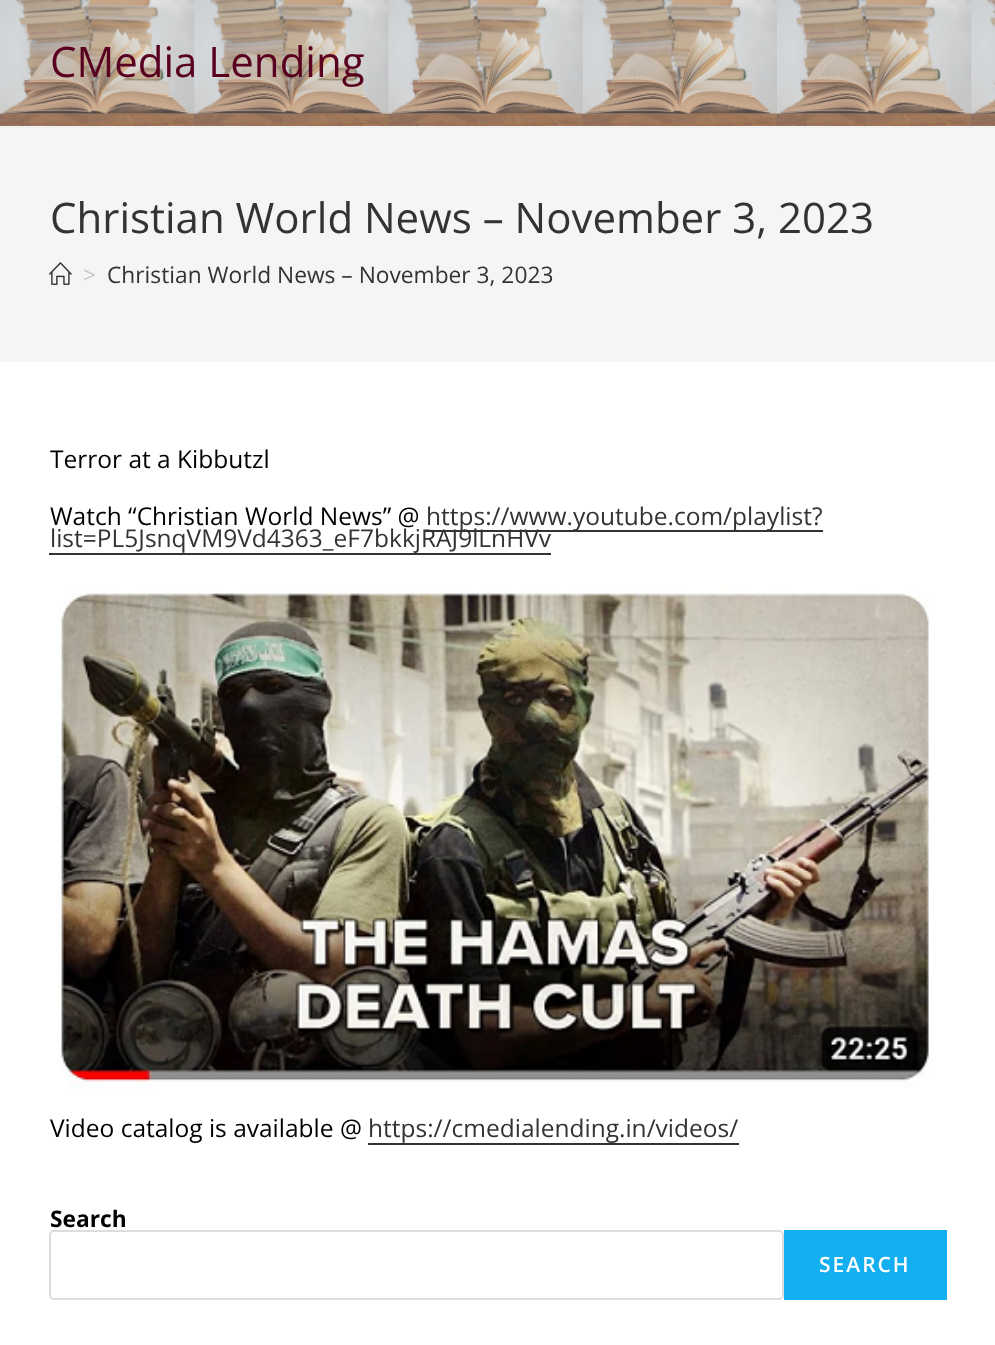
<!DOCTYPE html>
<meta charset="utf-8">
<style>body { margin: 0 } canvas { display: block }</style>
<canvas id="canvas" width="995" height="1345"></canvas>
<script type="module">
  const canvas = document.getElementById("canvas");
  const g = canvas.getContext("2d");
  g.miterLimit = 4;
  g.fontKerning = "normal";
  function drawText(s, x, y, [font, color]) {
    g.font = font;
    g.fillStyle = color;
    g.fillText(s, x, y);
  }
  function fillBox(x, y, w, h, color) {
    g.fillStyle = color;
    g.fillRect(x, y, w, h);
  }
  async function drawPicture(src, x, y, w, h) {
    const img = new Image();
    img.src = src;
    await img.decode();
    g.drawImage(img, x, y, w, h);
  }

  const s1 = ["42px Open Sans", "#590020"];
  const s2 = ["42px Open Sans", "#333333"];
  const s3 = ["22.75px Open Sans", "#C6C6C6"];
  const s4 = ["22.75px Open Sans", "#333333"];
  const s5 = ["24.5px Open Sans", "#000000"];
  const s6 = ["24.5px Open Sans", "#333333"];
  const s7 = ["bold 22.75px Open Sans", "#000000"];
  const s8 = ["600 21px Open Sans", "#FFFFFF"];

  fillBox(0, 0, 995, 1345, "#FFFFFF");
  await drawPicture("pic1.png", 0, 0, 995, 126);
  fillBox(0, 126, 995, 2, "#F1F1F1");
  drawText("CMedia Lending", 50, 77, s1);
  fillBox(0, 128, 995, 234, "#F5F5F5");
  drawText("Christian World News – November 3, 2023", 50, 233, s2);
  await drawPicture("pic2.png", 49, 262, 23, 23);
  drawText(">", 83, 283, s3);
  drawText("Christian World News – November 3, 2023", 107, 283, s4);
  drawText("Terror at a Kibbutzl", 50, 468, s5);
  drawText("Watch “Christian World News” @", 50, 525, s5);
  fillBox(425, 530, 398, 2, "#333333");
  drawText("https://www.youtube.com/playlist?", 426, 525, s6);
  drawText("list=PL5JsnqVM9Vd4363_eF7bkkjRAJ9lLnHVv", 50, 547, s6);
  fillBox(49, 553, 502, 2, "#333333");
  await drawPicture("pic3.png", 58, 585, 871, 509);
  drawText("Video catalog is available @", 50, 1137, s5);
  drawText("https://cmedialending.in/videos/", 368, 1137, s6);
  fillBox(368, 1143, 371, 2, "#333333");
  drawText("Search", 50, 1227, s7);
  g.beginPath();
  g.roundRect(50, 1231, 733, 68, 4);
  g.strokeStyle = "#DDDDDD";
  g.lineWidth = 2;
  g.stroke();
  fillBox(784, 1230, 163, 70, "#13AFF0");
  g.letterSpacing = "2px";
  drawText("SEARCH", 819, 1272, s8);
</script>
